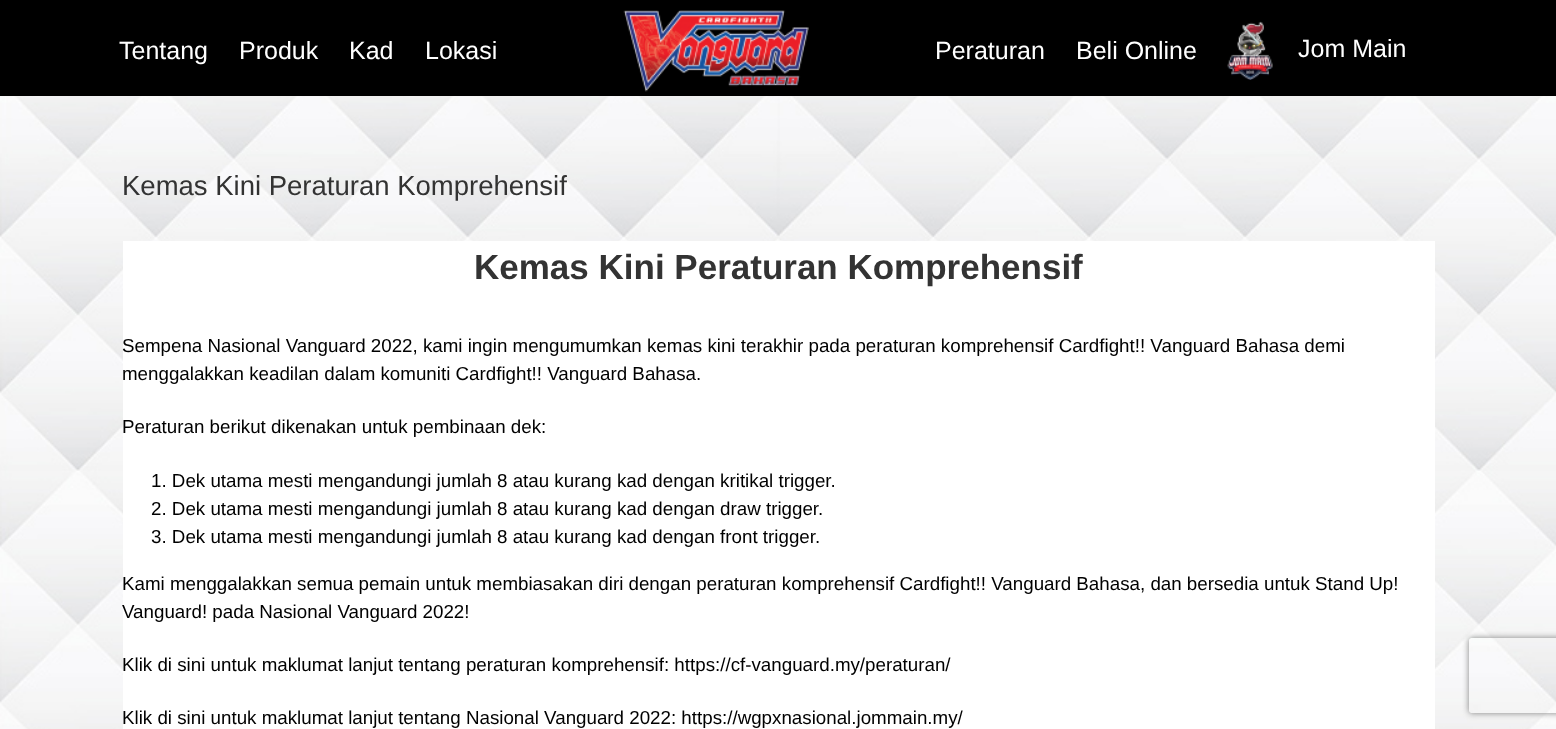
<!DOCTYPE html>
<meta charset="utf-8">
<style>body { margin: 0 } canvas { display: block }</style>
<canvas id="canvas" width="1556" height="729"></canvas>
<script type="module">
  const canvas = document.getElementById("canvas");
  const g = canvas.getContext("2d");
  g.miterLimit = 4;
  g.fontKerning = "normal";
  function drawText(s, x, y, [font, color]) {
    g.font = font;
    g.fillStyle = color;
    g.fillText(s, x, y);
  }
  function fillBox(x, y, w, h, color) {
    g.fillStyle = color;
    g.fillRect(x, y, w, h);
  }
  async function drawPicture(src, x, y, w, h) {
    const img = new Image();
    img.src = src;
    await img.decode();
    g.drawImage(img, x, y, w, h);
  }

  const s1 = ["25px Liberation Sans", "#FFFFFF"];
  const s2 = ["27.5px Liberation Sans", "#333333"];
  const s3 = ["bold 35px Liberation Sans", "#333333"];
  const s4 = ["18.75px Liberation Sans", "#000000"];

  fillBox(0, 0, 1556, 729, "#FFFFFF");
  await drawPicture("pic1.png", 0, 96, 1556, 1);
  fillBox(0, 0, 1556, 96, "#000000");
  drawText("Tentang", 119, 59, s1);
  drawText("Produk", 239, 59, s1);
  drawText("Kad", 349, 59, s1);
  drawText("Lokasi", 425, 59, s1);
  await drawPicture("pic2.png", 623, 10, 186, 82);
  drawText("Peraturan", 935, 59, s1);
  drawText("Beli Online", 1076, 59, s1);
  await drawPicture("pic3.png", 1227, 21, 46, 59);
  drawText("Jom Main", 1298, 57, s1);
  await drawPicture("pic4.png", 0, 96, 1556, 633);
  drawText("Kemas Kini Peraturan Komprehensif", 122, 195, s2);
  fillBox(123, 241, 1312, 488, "#FFFFFF");
  drawText("Kemas Kini Peraturan Komprehensif", 474, 279, s3);
  drawText("Sempena Nasional Vanguard 2022, kami ingin mengumumkan kemas kini terakhir pada peraturan komprehensif Cardfight!! Vanguard Bahasa demi", 122, 352, s4);
  drawText("menggalakkan keadilan dalam komuniti Cardfight!! Vanguard Bahasa.", 122, 380, s4);
  drawText("Peraturan berikut dikenakan untuk pembinaan dek:", 122, 433, s4);
  drawText("1. Dek utama mesti mengandungi jumlah 8 atau kurang kad dengan kritikal trigger.", 151, 487, s4);
  drawText("2. Dek utama mesti mengandungi jumlah 8 atau kurang kad dengan draw trigger.", 151, 515, s4);
  drawText("3. Dek utama mesti mengandungi jumlah 8 atau kurang kad dengan front trigger.", 151, 543, s4);
  drawText("Kami menggalakkan semua pemain untuk membiasakan diri dengan peraturan komprehensif Cardfight!! Vanguard Bahasa, dan bersedia untuk Stand Up!", 122, 590, s4);
  drawText("Vanguard! pada Nasional Vanguard 2022!", 122, 618, s4);
  drawText("Klik di sini untuk maklumat lanjut tentang peraturan komprehensif: https://cf-vanguard.my/peraturan/", 122, 671, s4);
  drawText("Klik di sini untuk maklumat lanjut tentang Nasional Vanguard 2022: https://wgpxnasional.jommain.my/", 122, 724, s4);
  g.save();
  g.beginPath();
  g.moveTo(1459, 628);
  g.lineTo(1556, 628);
  g.lineTo(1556, 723);
  g.lineTo(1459, 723);
  g.closePath();
  g.moveTo(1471.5, 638);
  g.lineTo(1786.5, 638);
  g.bezierCurveTo(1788, 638, 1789, 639, 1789, 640.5);
  g.lineTo(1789, 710.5);
  g.bezierCurveTo(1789, 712, 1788, 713, 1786.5, 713);
  g.lineTo(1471.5, 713);
  g.bezierCurveTo(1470, 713, 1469, 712, 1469, 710.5);
  g.lineTo(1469, 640.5);
  g.bezierCurveTo(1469, 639, 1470, 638, 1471.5, 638);
  g.closePath();
  g.clip("evenodd");
  g.fillStyle = "#808080";
  g.filter = "blur(3px)";
  g.beginPath();
  g.roundRect(1469, 638, 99, 75, 2.5);
  g.fill();
  g.filter = "none";
  g.restore();
</script>
